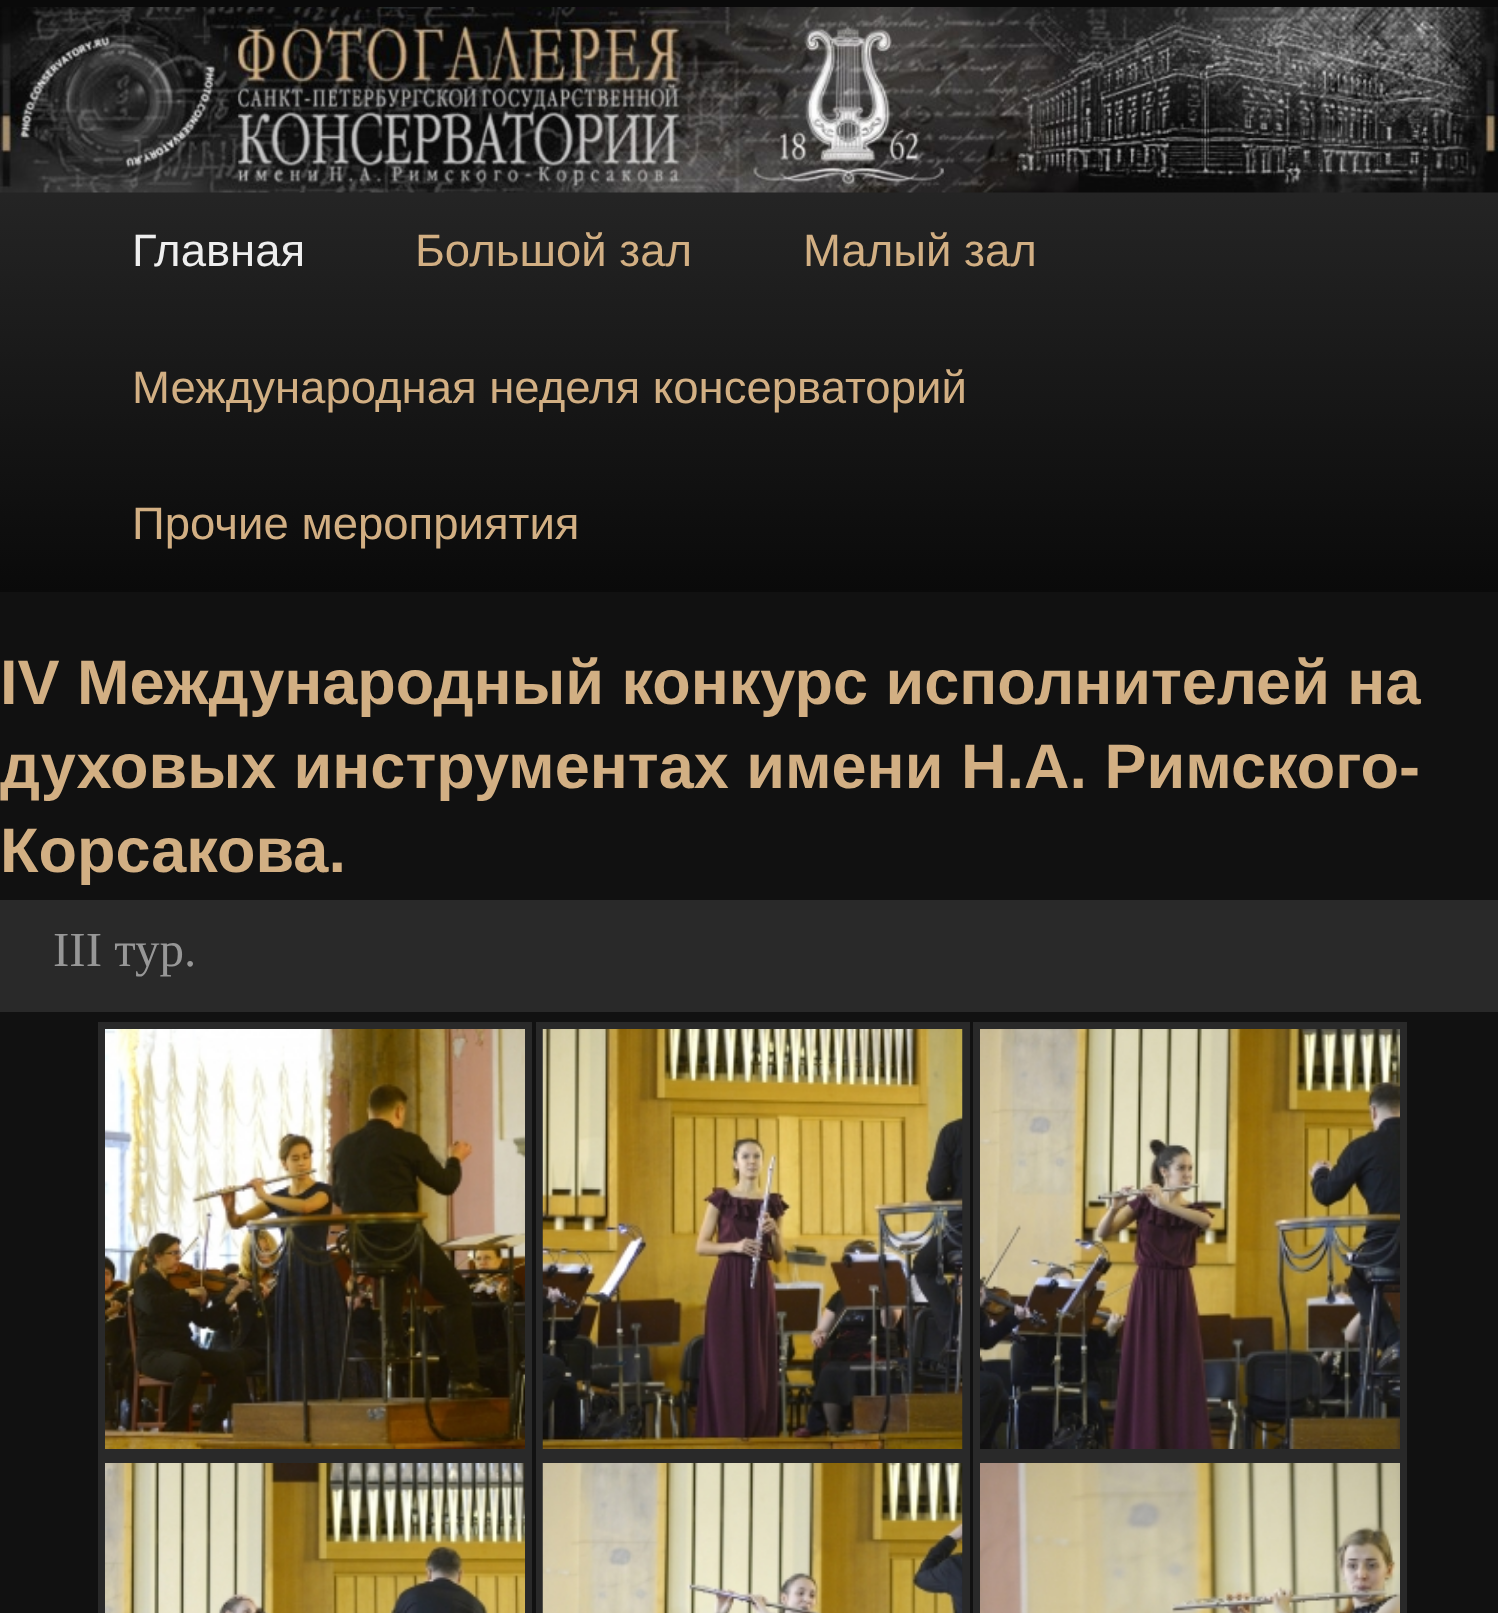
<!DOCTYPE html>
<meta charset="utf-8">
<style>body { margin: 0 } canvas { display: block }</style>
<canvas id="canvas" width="1498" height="1613"></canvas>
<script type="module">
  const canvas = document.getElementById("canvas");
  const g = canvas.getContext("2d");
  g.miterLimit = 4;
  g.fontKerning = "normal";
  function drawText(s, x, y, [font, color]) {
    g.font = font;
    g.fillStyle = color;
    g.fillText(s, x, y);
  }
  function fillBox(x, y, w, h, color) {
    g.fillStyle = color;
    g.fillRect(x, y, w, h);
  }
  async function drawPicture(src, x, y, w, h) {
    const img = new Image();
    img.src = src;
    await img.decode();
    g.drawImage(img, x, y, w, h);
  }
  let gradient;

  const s1 = ["45.5px Liberation Sans", "#EEEEEE"];
  const s2 = ["45.5px Liberation Sans", "#D2AF83"];
  const s3 = ["bold 63px Liberation Sans", "#D2AF83"];
  const s4 = ["49px Liberation Serif", "#979797"];

  fillBox(0, 0, 1498, 1613, "#111111");
  fillBox(0, 0, 1498, 7, "#0A0A0A");
  gradient = g.createLinearGradient(749, 182, 749, 592);
  gradient.addColorStop(0, "#252525");
  gradient.addColorStop(1, "#0A0A0A");
  g.fillStyle = gradient;
  g.fillRect(0, 192, 1498, 400);
  await drawPicture("pic1.png", 0, 7, 1498, 186);
  drawText("Главная", 132, 266, s1);
  drawText("Большой зал", 415, 266, s2);
  drawText("Малый зал", 803, 266, s2);
  drawText("Международная неделя консерваторий", 132, 403, s2);
  drawText("Прочие мероприятия", 132, 539, s2);
  drawText("IV Международный конкурс исполнителей на", 0, 704, s3);
  drawText("духовых инструментах имени Н.А. Римского-", 0, 788, s3);
  drawText("Корсакова.", 0, 872, s3);
  fillBox(0, 900, 1498, 112, "#292929");
  drawText("III тур.", 53, 966, s4);
  fillBox(98, 1022, 434, 591, "#292929");
  await drawPicture("pic2.png", 105, 1029, 420, 420);
  fillBox(536, 1022, 434, 591, "#292929");
  await drawPicture("pic3.png", 542, 1029, 421, 420);
  fillBox(973, 1022, 434, 591, "#292929");
  await drawPicture("pic4.png", 980, 1029, 420, 420);
  await drawPicture("pic5.png", 105, 1463, 420, 150);
  await drawPicture("pic6.png", 542, 1463, 421, 150);
  await drawPicture("pic7.png", 980, 1463, 420, 150);
</script>
